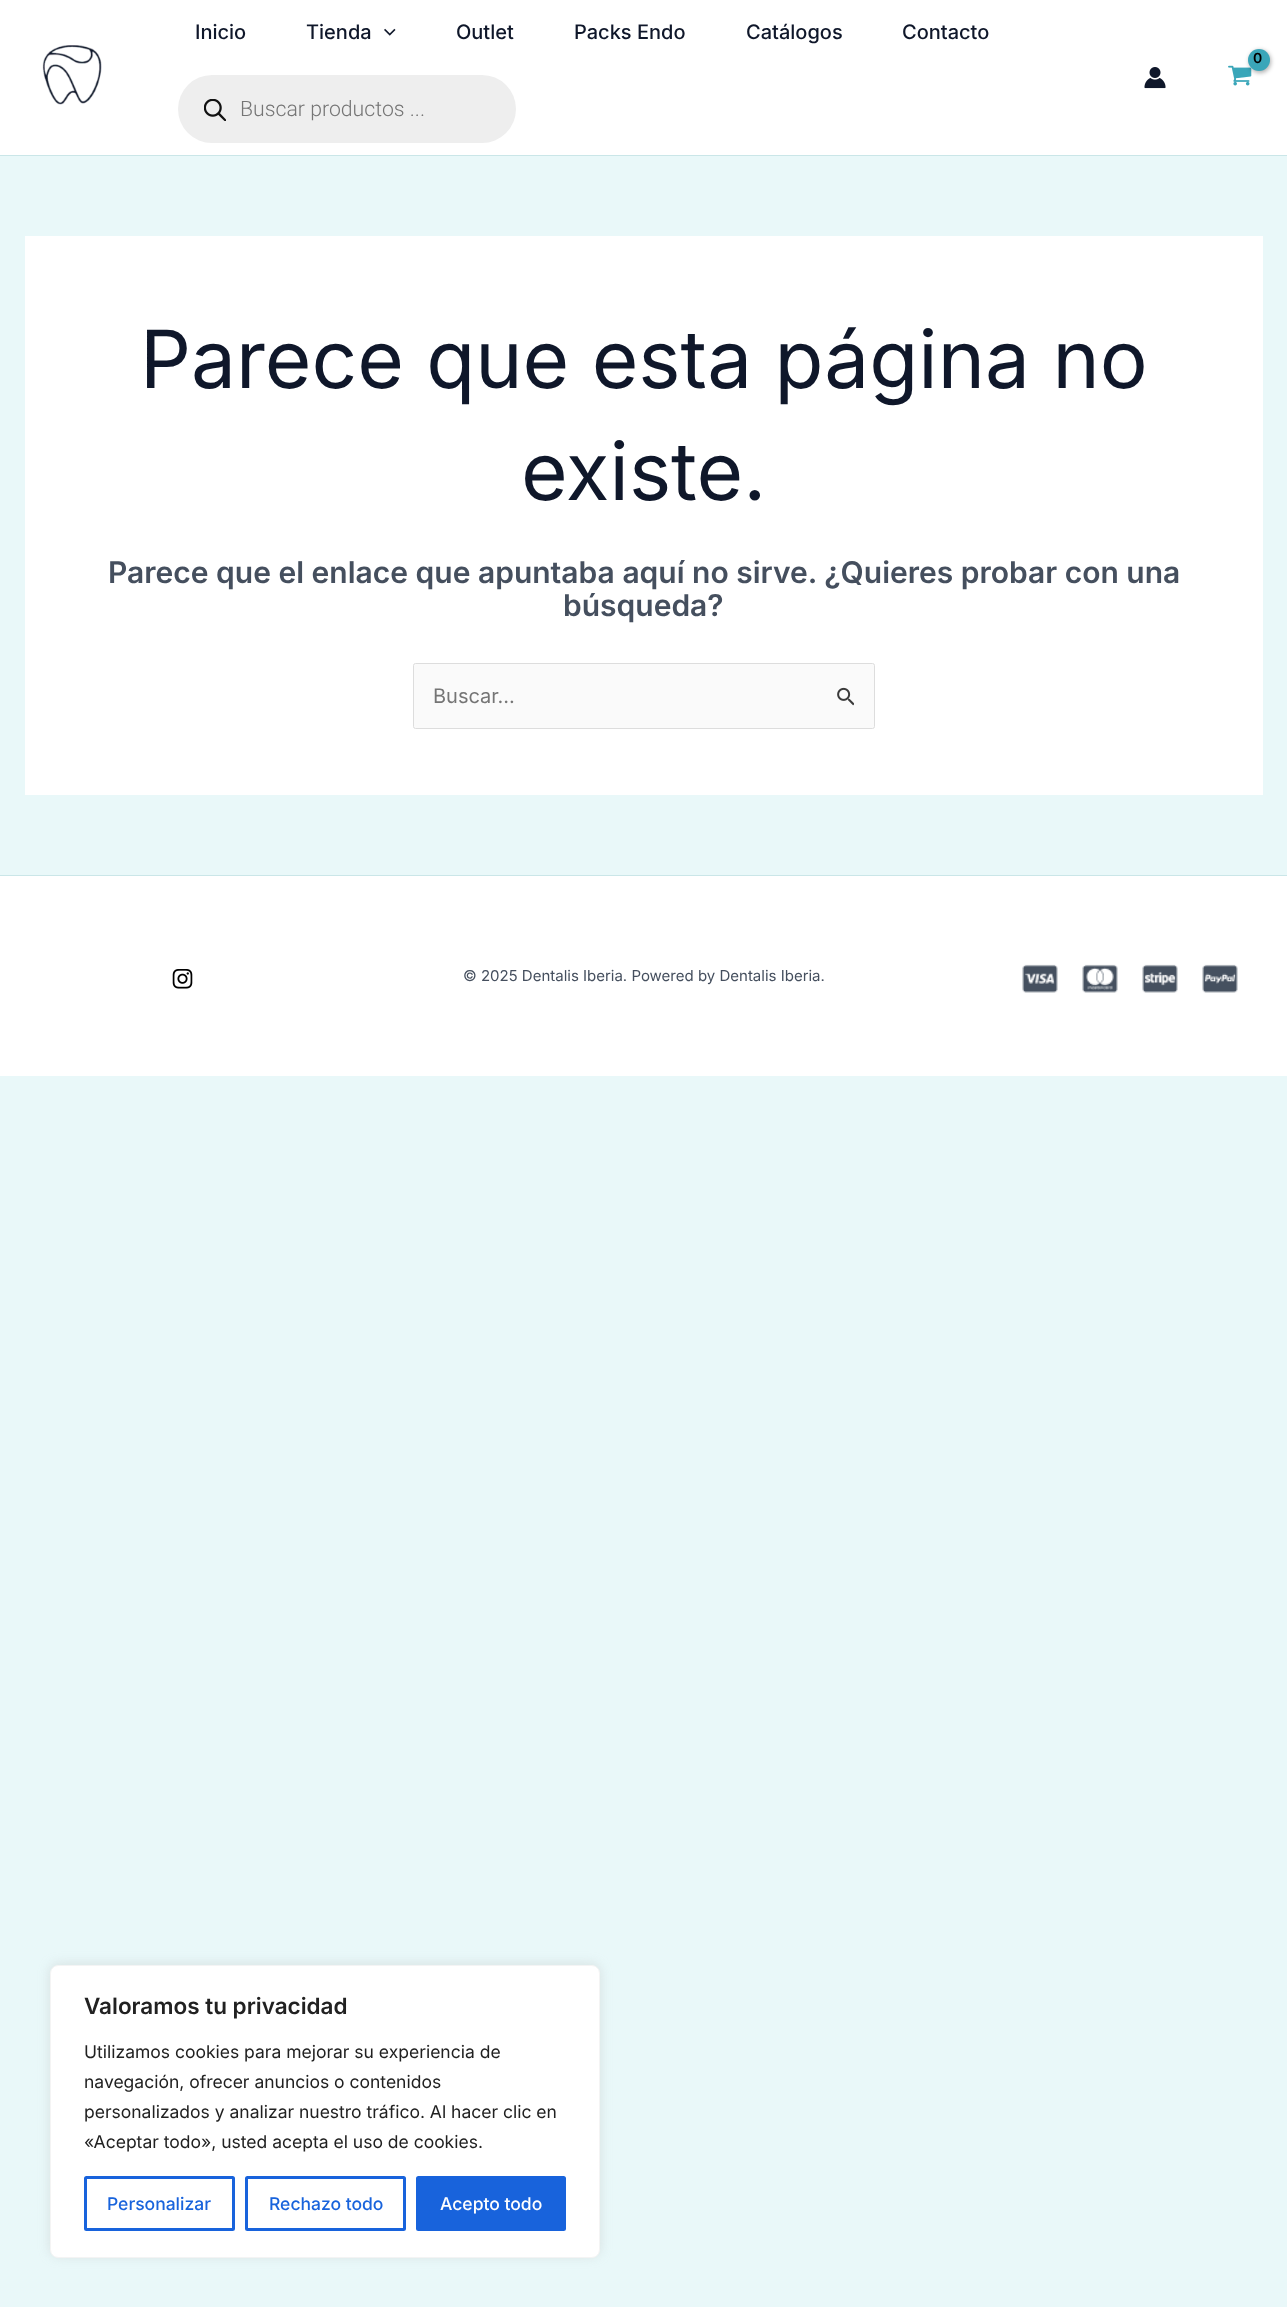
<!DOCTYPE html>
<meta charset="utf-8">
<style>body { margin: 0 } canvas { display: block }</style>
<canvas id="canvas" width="1287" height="2307"></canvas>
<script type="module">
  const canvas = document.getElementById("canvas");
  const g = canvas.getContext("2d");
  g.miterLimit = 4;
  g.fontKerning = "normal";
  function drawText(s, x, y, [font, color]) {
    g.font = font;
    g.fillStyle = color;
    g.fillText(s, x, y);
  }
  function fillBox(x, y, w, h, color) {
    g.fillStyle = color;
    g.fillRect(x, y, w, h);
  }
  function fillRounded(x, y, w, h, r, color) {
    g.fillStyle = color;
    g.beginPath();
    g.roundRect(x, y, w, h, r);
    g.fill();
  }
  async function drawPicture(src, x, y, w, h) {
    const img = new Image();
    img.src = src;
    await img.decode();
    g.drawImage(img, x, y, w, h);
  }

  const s1 = ["500 20px Inter", "#0F172A"];
  const s2 = ["300 21.25px Roboto", "#757575"];
  const s3 = ["600 14px Inter", "#000000"];
  const s4 = ["80px Inter", "#0F172A"];
  const s5 = ["600 30px Inter", "#454F5E"];
  const s6 = ["20px Inter", "#757575"];
  const s7 = ["15px Inter", "#454F5E"];
  const s8 = ["600 22.5px Inter", "#212121"];
  const s9 = ["17.5px Inter", "#212121"];
  const s10 = ["500 17.5px Inter", "#1863DC"];
  const s11 = ["500 17.5px Inter", "#FFFFFF"];

  fillBox(0, 0, 1287, 2307, "#E9F8F9");
  fillBox(0, 0, 1287, 155, "#FFFFFF");
  fillBox(0, 155, 1287, 1, "#CAE6E8");
  await drawPicture("pic1.png", 42, 45, 60, 60);
  drawText("Inicio", 195, 39, s1);
  drawText("Tienda", 306, 39, s1);
  await drawPicture("pic2.png", 384, 28, 12, 8);
  drawText("Outlet", 456, 39, s1);
  drawText("Packs Endo", 574, 39, s1);
  drawText("Catálogos", 746, 39, s1);
  drawText("Contacto", 902, 39, s1);
  fillRounded(178, 75, 338, 68, 34, "#EEEEEE");
  await drawPicture("pic3.png", 204, 99, 22, 22);
  drawText("Buscar productos ...", 240, 116, s2);
  await drawPicture("pic4.png", 1228, 65, 24, 21);
  g.fillStyle = "rgba(0, 0, 0, 0.3)";
  g.filter = "blur(2px)";
  g.beginPath();
  g.roundRect(1249, 50, 22, 23, 11);
  g.fill();
  g.filter = "none";
  g.fillStyle = "#3AA6B9";
  g.beginPath();
  g.arc(1259, 60, 11, 0, Math.PI * 2);
  g.fill();
  g.letterSpacing = "-1px";
  drawText("0", 1253, 63, s3);
  await drawPicture("pic5.png", 1144, 67, 22, 22);
  fillBox(25, 236, 1238, 559, "#FFFFFF");
  g.letterSpacing = "0px";
  drawText("Parece que esta página no", 140, 388, s4);
  drawText("existe.", 521, 500, s4);
  drawText("Parece que el enlace que apuntaba aquí no sirve. ¿Quieres probar con una", 108, 583, s5);
  drawText("búsqueda?", 563, 616, s5);
  g.fillStyle = "#FAFAFA";
  g.beginPath();
  g.roundRect(413.5, 663.5, 461, 65, 2);
  g.fill();
  g.strokeStyle = "#DDDDDD";
  g.stroke();
  drawText("Buscar...", 433, 703, s6);
  await drawPicture("pic6.png", 837, 687, 17, 19);
  fillBox(0, 876, 1287, 200, "#FFFFFF");
  fillBox(0, 875, 1287, 1, "#CAE6E8");
  await drawPicture("pic7.png", 172, 969, 21, 20);
  drawText("© 2025 Dentalis Iberia. Powered by Dentalis Iberia.", 463, 981, s7);
  await drawPicture("pic8.png", 1022, 964, 216, 29);
  g.fillStyle = "rgba(172, 171, 171, 0.3)";
  g.filter = "blur(6px)";
  g.beginPath();
  g.roundRect(50, 1964, 550, 292, 8);
  g.fill();
  g.filter = "none";
  g.fillStyle = "#FFFFFF";
  g.beginPath();
  g.roundRect(50.5, 1965.5, 549, 292, 7.5);
  g.fill();
  g.strokeStyle = "#F4F4F4";
  g.stroke();
  drawText("Valoramos tu privacidad", 84, 2014, s8);
  drawText("Utilizamos cookies para mejorar su experiencia de", 84, 2058, s9);
  drawText("navegación, ofrecer anuncios o contenidos", 84, 2088, s9);
  drawText("personalizados y analizar nuestro tráfico. Al hacer clic en", 84, 2118, s9);
  drawText("«Aceptar todo», usted acepta el uso de cookies.", 84, 2148, s9);
  g.beginPath();
  g.roundRect(85.5, 2177.5, 148, 52, 1);
  g.strokeStyle = "#1863DC";
  g.lineWidth = 3;
  g.stroke();
  drawText("Personalizar", 107, 2210, s10);
  g.beginPath();
  g.roundRect(246.5, 2177.5, 158, 52, 1);
  g.stroke();
  drawText("Rechazo todo", 269, 2210, s10);
  g.beginPath();
  g.roundRect(417.5, 2177.5, 147, 52, 1);
  g.fill();
  g.stroke();
  drawText("Acepto todo", 440, 2210, s11);
</script>
